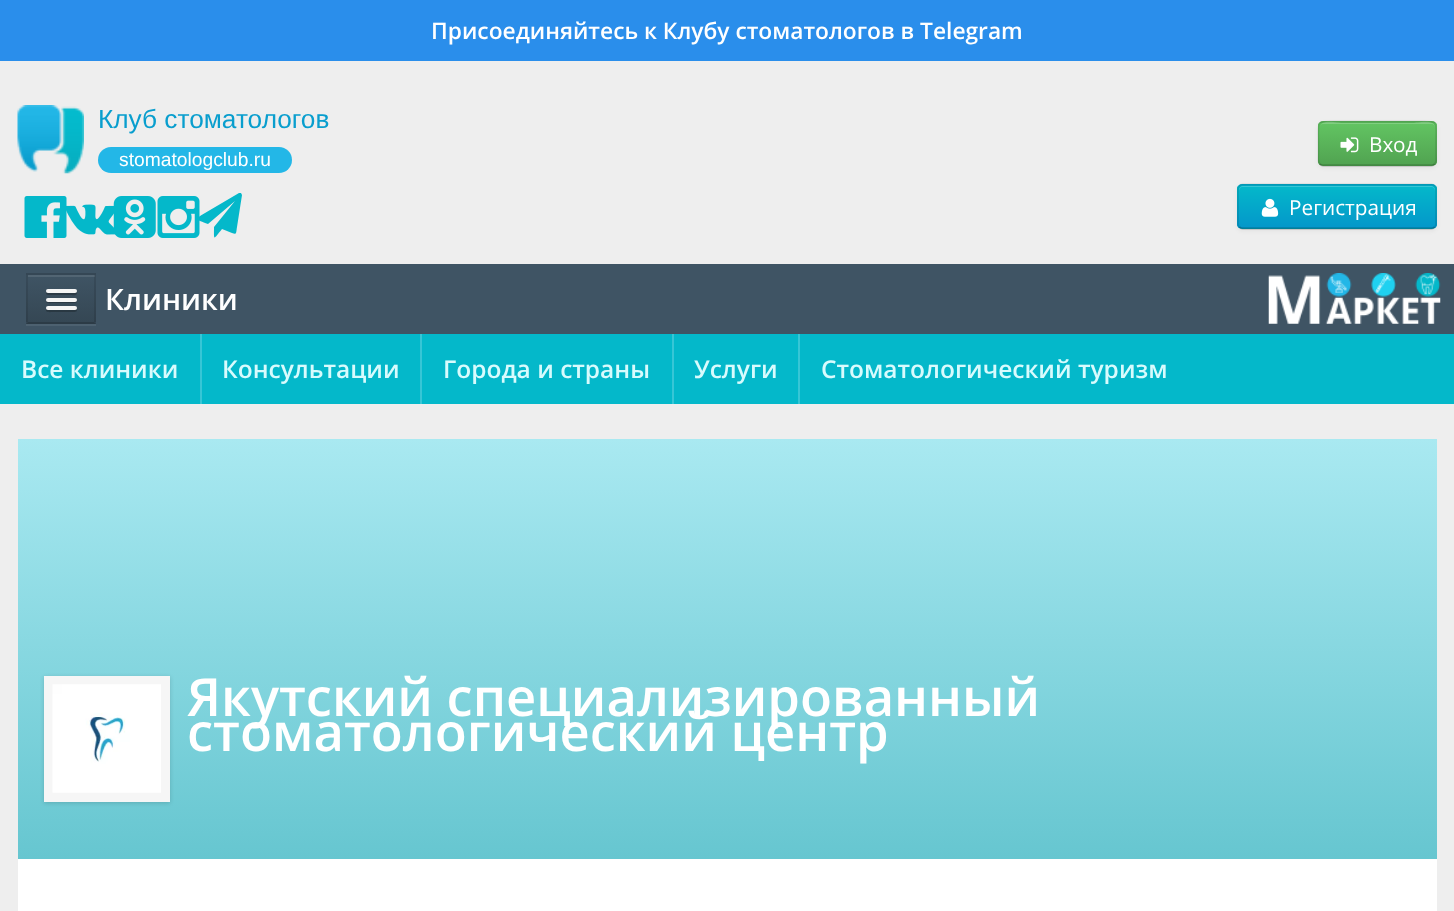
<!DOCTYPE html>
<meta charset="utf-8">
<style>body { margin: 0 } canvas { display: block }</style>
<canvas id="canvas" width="1454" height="911"></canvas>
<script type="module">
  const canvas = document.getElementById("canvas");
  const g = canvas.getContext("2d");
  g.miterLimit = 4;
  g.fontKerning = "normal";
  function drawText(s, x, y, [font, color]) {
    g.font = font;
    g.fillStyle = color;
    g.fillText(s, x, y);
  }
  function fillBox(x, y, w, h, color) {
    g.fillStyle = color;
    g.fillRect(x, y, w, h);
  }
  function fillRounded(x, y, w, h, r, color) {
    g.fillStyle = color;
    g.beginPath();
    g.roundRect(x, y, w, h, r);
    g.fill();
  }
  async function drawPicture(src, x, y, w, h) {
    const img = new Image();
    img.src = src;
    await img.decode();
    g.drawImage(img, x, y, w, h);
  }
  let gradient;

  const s1 = ["600 22.75px Open Sans", "#FFFFFF"];
  const s2 = ["26.25px Liberation Sans", "#099ECE"];
  const s3 = ["19.25px Liberation Sans", "#FFFFFF"];
  const s4 = ["20.75px Open Sans", "#FFFFFF"];
  const s5 = ["600 29.5px Open Sans", "#FFFFFF"];
  const s6 = ["600 24.5px Open Sans", "#D8FBFD"];
  const s7 = ["600 52.5px Open Sans", "#FFFFFF"];

  fillBox(0, 0, 1454, 911, "#EEEEEE");
  fillBox(0, 0, 1454, 61, "#2A8EEB");
  drawText("Присоединяйтесь к Клубу стоматологов в Telegram", 431, 39, s1);
  await drawPicture("pic1.png", 17, 105, 67, 69);
  drawText("Клуб стоматологов", 98, 128, s2);
  fillRounded(98, 147, 194, 26, 13, "#23B7E7");
  drawText("stomatologclub.ru", 119, 166, s3);
  g.fillStyle = "rgba(0, 0, 0, 0.05)";
  g.filter = "blur(2px)";
  g.beginPath();
  g.roundRect(1318, 123, 119, 45, 5);
  g.fill();
  g.filter = "none";
  fillRounded(1318, 121, 119, 45, 5, "#5BB75B");
  g.save();
  g.beginPath();
  g.roundRect(1318, 121, 119, 45, 5);
  g.clip();
  gradient = g.createLinearGradient(1377, 123, 1377, 165);
  gradient.addColorStop(0, "#62C462");
  gradient.addColorStop(1, "#51A351");
  g.fillStyle = gradient;
  g.fillRect(1318, 123, 119, 42);
  g.restore();
  g.fillStyle = "rgba(255, 255, 255, 0.2)";
  g.beginPath();
  g.moveTo(1323, 124);
  g.lineTo(1432, 124);
  g.bezierCurveTo(1433, 124, 1435, 126, 1435, 128);
  g.bezierCurveTo(1435, 118, 1417, 123, 1413, 123);
  g.lineTo(1342, 123);
  g.bezierCurveTo(1338, 123, 1320, 118, 1320, 128);
  g.bezierCurveTo(1320, 126, 1321, 124, 1323, 124);
  g.closePath();
  g.fill();
  g.beginPath();
  g.moveTo(1434.5, 164);
  g.bezierCurveTo(1434, 165, 1432.5, 165.5, 1431.5, 165.5);
  g.lineTo(1323, 165.5);
  g.bezierCurveTo(1322, 165.5, 1320.5, 165, 1320, 164);
  g.strokeStyle = "rgba(0, 0, 0, 0.25)";
  g.lineWidth = 1.8;
  g.stroke();
  g.beginPath();
  g.moveTo(1320, 164);
  g.bezierCurveTo(1317.5, 162, 1318.5, 157.5, 1318.5, 155);
  g.lineTo(1318.5, 143.5);
  g.bezierCurveTo(1318.5, 118, 1314.5, 121.5, 1341, 121.5);
  g.lineTo(1413.5, 121.5);
  g.bezierCurveTo(1440, 121.5, 1436, 118, 1436, 143.5);
  g.lineTo(1436, 155);
  g.bezierCurveTo(1436, 157.5, 1437, 162, 1434.5, 164);
  g.strokeStyle = "rgba(0, 0, 0, 0.1)";
  g.stroke();
  await drawPicture("pic2.png", 1340, 137, 19, 16);
  drawText("Вход", 1369, 152, s4);
  g.fillStyle = "rgba(0, 0, 0, 0.05)";
  g.filter = "blur(2px)";
  g.beginPath();
  g.roundRect(1237, 186, 200, 45, 5);
  g.fill();
  g.filter = "none";
  fillRounded(1237, 184, 200, 45, 5, "#04ABCA");
  g.save();
  g.beginPath();
  g.roundRect(1237, 184, 200, 45, 5);
  g.clip();
  gradient = g.createLinearGradient(1337, 186, 1337, 228);
  gradient.addColorStop(0, "#04B8CA");
  gradient.addColorStop(1, "#0497CA");
  g.fillStyle = gradient;
  g.fillRect(1237, 186, 200, 42);
  g.restore();
  g.fillStyle = "#36C6D5";
  g.beginPath();
  g.moveTo(1242, 187);
  g.lineTo(1432, 187);
  g.bezierCurveTo(1433, 187, 1435, 189, 1435, 191);
  g.lineTo(1435, 190);
  g.bezierCurveTo(1435, 188, 1433, 186, 1431, 186);
  g.lineTo(1243, 186);
  g.bezierCurveTo(1241, 186, 1239, 188, 1239, 190);
  g.lineTo(1239, 191);
  g.bezierCurveTo(1239, 189, 1241, 187, 1242, 187);
  g.closePath();
  g.fill();
  g.beginPath();
  g.moveTo(1434.5, 227);
  g.bezierCurveTo(1434, 228, 1432.5, 228.5, 1431.5, 228.5);
  g.lineTo(1242.5, 228.5);
  g.bezierCurveTo(1241.5, 228.5, 1240, 228, 1239.5, 227);
  g.strokeStyle = "rgba(0, 0, 0, 0.25)";
  g.stroke();
  g.beginPath();
  g.moveTo(1239.5, 227);
  g.bezierCurveTo(1238.5, 226.5, 1238, 225, 1238, 224);
  g.lineTo(1238, 189);
  g.bezierCurveTo(1238, 188, 1238.5, 186.5, 1239.5, 186);
  g.bezierCurveTo(1240, 185, 1241.5, 184.5, 1242.5, 184.5);
  g.lineTo(1431.5, 184.5);
  g.bezierCurveTo(1432.5, 184.5, 1434, 185, 1434.5, 186);
  g.bezierCurveTo(1435.5, 186.5, 1436, 188, 1436, 189);
  g.lineTo(1436, 224);
  g.bezierCurveTo(1436, 225, 1435.5, 226.5, 1434.5, 227);
  g.strokeStyle = "rgba(0, 0, 0, 0.1)";
  g.stroke();
  await drawPicture("pic3.png", 1261, 198, 18, 19);
  drawText("Регистрация", 1289, 215, s4);
  await drawPicture("pic4.png", 24, 196, 43, 42);
  await drawPicture("pic5.png", 66, 204, 50, 31);
  await drawPicture("pic6.png", 113, 196, 43, 42);
  await drawPicture("pic7.png", 157, 196, 43, 42);
  g.fillStyle = "#04B8CA";
  g.beginPath();
  g.moveTo(241, 193);
  g.lineTo(242, 195);
  g.lineTo(237, 227);
  g.bezierCurveTo(236, 233, 237, 235, 232, 233);
  g.lineTo(222, 229);
  g.bezierCurveTo(213, 240, 214, 241, 214, 227);
  g.lineTo(235, 201);
  g.lineTo(208, 224);
  g.bezierCurveTo(196, 219, 193, 220, 205, 213);
  g.lineTo(239, 193);
  g.closePath();
  g.fill();
  fillBox(0, 264, 1454, 70, "#3F5464");
  g.fillStyle = "#4D6170";
  g.beginPath();
  g.moveTo(26, 275);
  g.lineTo(26, 326);
  g.lineTo(96, 326);
  g.lineTo(96, 324);
  g.lineTo(26, 324);
  g.closePath();
  g.fill();
  fillBox(26, 273, 70, 51, "#3B4F5E");
  gradient = g.createLinearGradient(61, 275, 61, 322);
  gradient.addColorStop(0, "#3F5464");
  gradient.addColorStop(1, "#354754");
  g.fillStyle = gradient;
  g.fillRect(26, 275, 70, 47);
  fillBox(28, 275, 67, 2, "#526573");
  g.fillStyle = "#354755";
  g.beginPath();
  g.moveTo(26, 273);
  g.lineTo(96, 273);
  g.lineTo(94, 275);
  g.lineTo(28, 275);
  g.closePath();
  g.fill();
  g.fillStyle = "rgba(0, 0, 0, 0.1)";
  g.beginPath();
  g.moveTo(96, 273);
  g.lineTo(96, 324);
  g.lineTo(94, 322);
  g.lineTo(94, 275);
  g.closePath();
  g.fill();
  g.fillStyle = "rgba(0, 0, 0, 0.25)";
  g.beginPath();
  g.moveTo(96, 324);
  g.lineTo(26, 324);
  g.lineTo(28, 322);
  g.lineTo(94, 322);
  g.closePath();
  g.fill();
  g.fillStyle = "rgba(0, 0, 0, 0.1)";
  g.beginPath();
  g.moveTo(26, 324);
  g.lineTo(26, 273);
  g.lineTo(28, 275);
  g.lineTo(28, 322);
  g.closePath();
  g.fill();
  g.fillStyle = "#2C3B46";
  g.beginPath();
  g.moveTo(46.5, 292);
  g.bezierCurveTo(44, 296, 52, 295, 52.5, 295);
  g.lineTo(70.5, 295);
  g.bezierCurveTo(71.5, 295, 76.5, 296, 77, 293.5);
  g.bezierCurveTo(77, 293, 77, 292, 76.5, 291.5);
  g.lineTo(75.5, 292);
  g.bezierCurveTo(73, 292.5, 47, 292.5, 46.5, 292);
  g.closePath();
  g.fill();
  fillRounded(46, 289, 31, 4, 2, "#F5F5F5");
  g.fillStyle = "#2B3944";
  g.beginPath();
  g.moveTo(46, 300.5);
  g.bezierCurveTo(45, 304, 51.5, 303, 52.5, 303);
  g.lineTo(70.5, 303);
  g.bezierCurveTo(71.5, 303, 78.5, 304, 77, 300);
  g.lineTo(75.5, 301);
  g.lineTo(47, 301);
  g.closePath();
  g.fill();
  fillRounded(46, 298, 31, 4, 2, "#F5F5F5");
  g.fillStyle = "#293842";
  g.beginPath();
  g.moveTo(46, 309.5);
  g.bezierCurveTo(45, 313, 51.5, 312, 52.5, 312);
  g.lineTo(70.5, 312);
  g.bezierCurveTo(71, 312, 79, 313, 76.5, 309);
  g.lineTo(75.5, 309.5);
  g.lineTo(47, 309.5);
  g.closePath();
  g.fill();
  fillRounded(46, 306, 31, 4, 2, "#F5F5F5");
  drawText("Клиники", 105, 310, s5);
  await drawPicture("pic8.png", 1268, 273, 173, 51);
  fillBox(0, 334, 1454, 70, "#04B8CA");
  fillBox(200, 334, 2, 70, "#37C6D6");
  drawText("Все клиники", 21, 378, s6);
  fillBox(420, 334, 2, 70, "#37C6D6");
  drawText("Консультации", 222, 378, s6);
  fillBox(672, 334, 2, 70, "#37C6D6");
  drawText("Города и страны", 443, 378, s6);
  fillBox(798, 334, 2, 70, "#37C6D6");
  drawText("Услуги", 694, 378, s6);
  drawText("Стоматологический туризм", 821, 378, s6);
  fillBox(18, 859, 1419, 52, "#FFFFFF");
  gradient = g.createLinearGradient(1068, 859, 1068, 439);
  gradient.addColorStop(0, "#66C6D0");
  gradient.addColorStop(1, "#A9E9F1");
  g.fillStyle = gradient;
  g.fillRect(18, 439, 1419, 420);
  g.fillStyle = "rgba(0, 0, 0, 0.15)";
  g.filter = "blur(2px)";
  g.beginPath();
  g.rect(44, 677, 126, 126);
  g.fill();
  g.filter = "none";
  fillBox(44, 676, 126, 126, "#F6F6F6");
  await drawPicture("pic9.png", 52, 684, 109, 109);
  drawText("Якутский специализированный", 187, 716, s7);
  drawText("стоматологический центр", 187, 751, s7);
</script>
